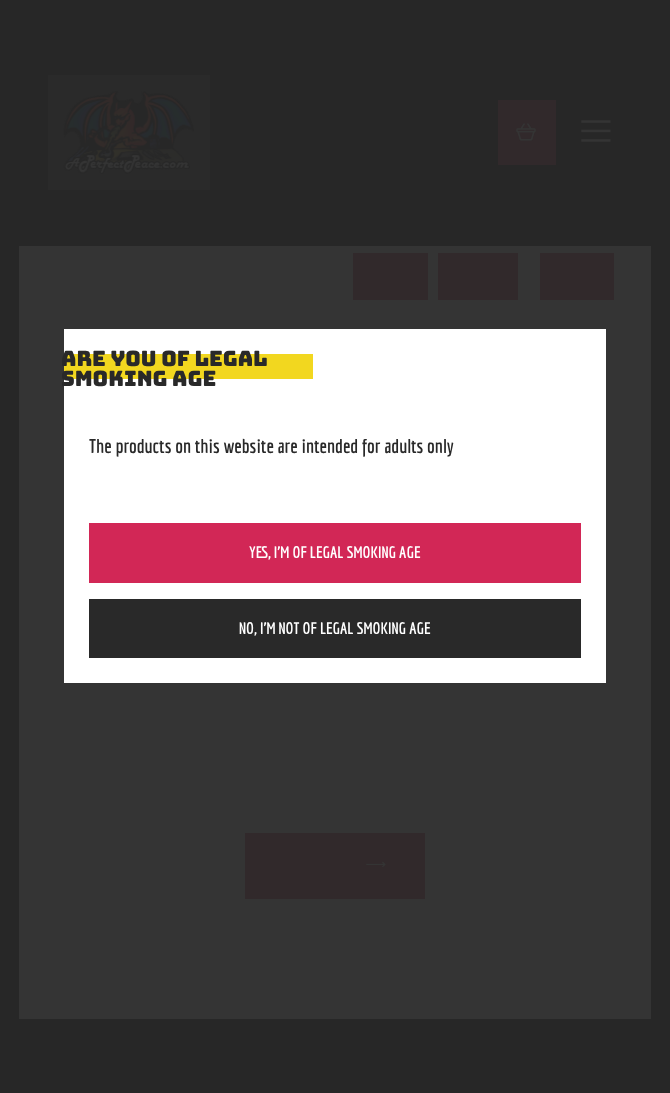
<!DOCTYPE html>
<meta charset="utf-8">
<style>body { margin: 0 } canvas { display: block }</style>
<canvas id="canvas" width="670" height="1093"></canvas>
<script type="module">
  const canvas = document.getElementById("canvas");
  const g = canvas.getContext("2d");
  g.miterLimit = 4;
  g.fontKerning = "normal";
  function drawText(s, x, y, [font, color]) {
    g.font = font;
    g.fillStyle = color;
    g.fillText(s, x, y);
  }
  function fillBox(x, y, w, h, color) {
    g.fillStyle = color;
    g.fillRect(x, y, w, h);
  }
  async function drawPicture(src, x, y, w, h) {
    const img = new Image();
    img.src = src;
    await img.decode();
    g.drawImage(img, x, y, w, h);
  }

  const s1 = ["21.1px Bungee", "#292929"];
  const s2 = ["bold 19.5px Economica", "#292929"];
  const s3 = ["bold 16.25px Economica", "#FFFFFF"];

  fillBox(0, 0, 670, 1093, "#272727");
  fillBox(19, 246, 632, 773, "#343434");
  fillBox(48, 75, 162, 115, "#2A2A2A");
  await drawPicture("pic1.png", 63, 91, 131, 83);
  fillBox(498, 100, 58, 65, "#31292B");
  await drawPicture("pic2.png", 516, 123, 20, 18);
  await drawPicture("pic3.png", 581, 120, 30, 22);
  fillBox(353, 253, 75, 47, "#31292B");
  fillBox(438, 253, 80, 47, "#31292B");
  fillBox(540, 253, 74, 47, "#31292B");
  fillBox(245, 833, 180, 66, "#31292B");
  await drawPicture("pic4.png", 366, 861, 20, 7);
  fillBox(64, 329, 542, 354, "#FFFFFF");
  fillBox(64, 354, 249, 25, "#F2D71F");
  drawText("ARE YOU OF LEGAL", 61, 366, s1);
  drawText("SMOKING AGE", 61, 386, s1);
  drawText("The products on this website are intended for adults only", 89, 453, s2);
  fillBox(89, 523, 492, 60, "#D22756");
  drawText("YES, I’M OF LEGAL SMOKING AGE", 249, 558, s3);
  fillBox(89, 599, 492, 59, "#292929");
  drawText("NO, I’M NOT OF LEGAL SMOKING AGE", 239, 634, s3);
</script>
